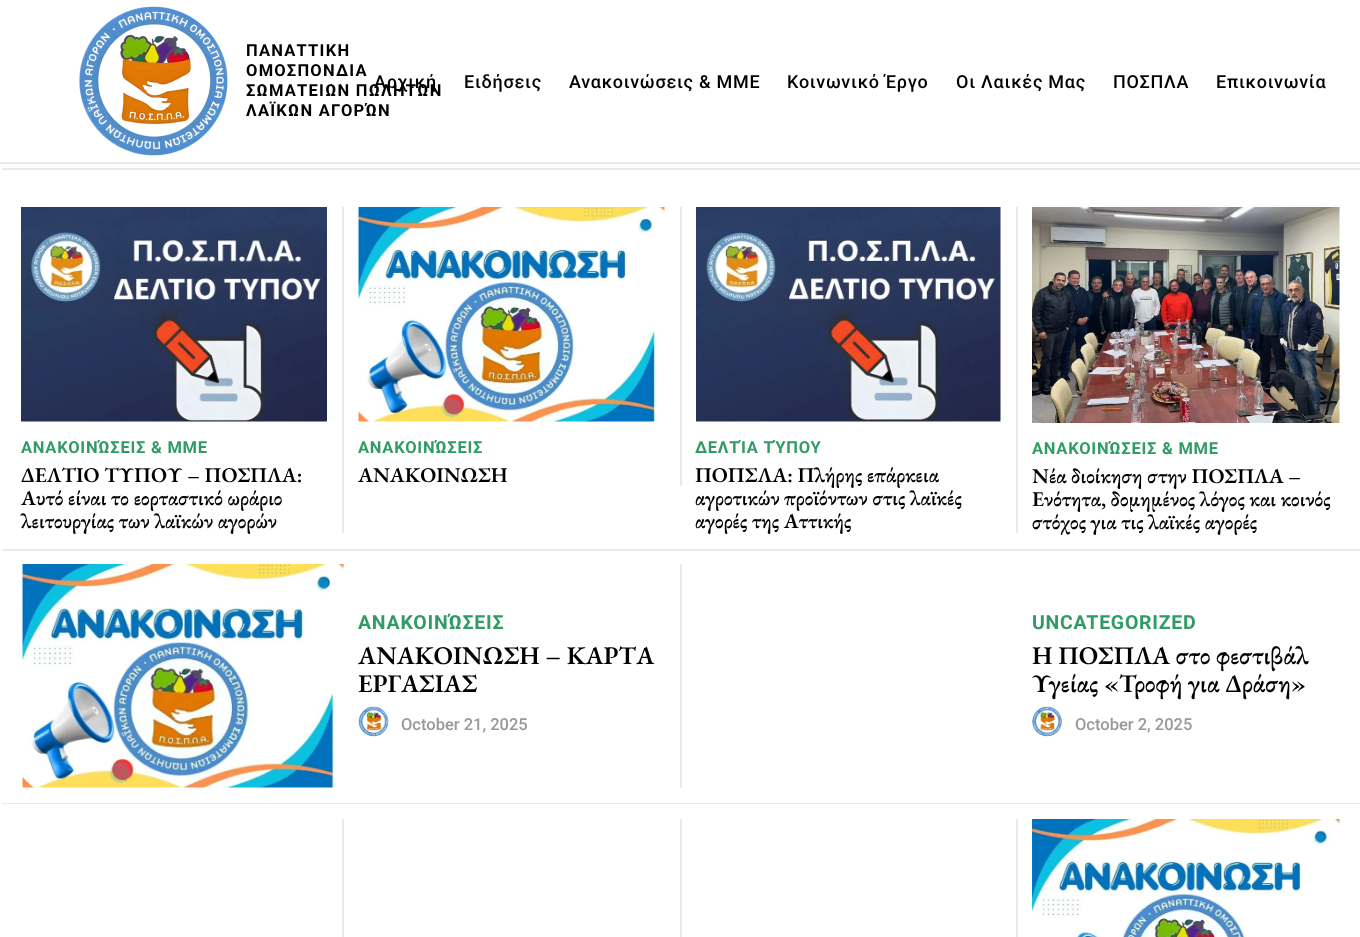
<!DOCTYPE html>
<meta charset="utf-8">
<style>body { margin: 0 } canvas { display: block }</style>
<canvas id="canvas" width="1360" height="937"></canvas>
<script type="module">
  const canvas = document.getElementById("canvas");
  const g = canvas.getContext("2d");
  g.miterLimit = 4;
  g.fontKerning = "normal";
  function drawText(s, x, y, [font, color]) {
    g.font = font;
    g.fillStyle = color;
    g.fillText(s, x, y);
  }
  function fillBox(x, y, w, h, color) {
    g.fillStyle = color;
    g.fillRect(x, y, w, h);
  }
  async function drawPicture(src, x, y, w, h) {
    const img = new Image();
    img.src = src;
    await img.decode();
    g.drawImage(img, x, y, w, h);
  }

  const s1 = ["bold 16.5px Roboto", "#000000"];
  const s2 = ["500 18px Roboto", "#000000"];
  const s3 = ["bold 16.5px Roboto", "#309B65"];
  const s4 = ["600 21px EB Garamond", "#000000"];
  const s5 = ["bold 19.5px Roboto", "#309B65"];
  const s6 = ["600 25.5px EB Garamond", "#000000"];
  const s7 = ["500 16.5px Roboto", "#999999"];

  fillBox(0, 0, 1360, 937, "#FFFFFF");
  fillBox(0, 162, 1360, 2, "#EAEAEA");
  await drawPicture("pic1.png", 79, 6, 149, 150);
  g.letterSpacing = "1.25px";
  drawText("ΠΑΝΑΤΤΙΚΗ", 246, 56, s1);
  drawText("ΟΜΟΣΠΟΝΔΙΑ", 246, 76, s1);
  drawText("ΣΩΜΑΤΕΙΩΝ ΠΩΛΗΤΩΝ", 246, 96, s1);
  drawText("ΛΑΪΚΩΝ ΑΓΟΡΏΝ", 246, 116, s1);
  g.letterSpacing = "0.75px";
  drawText("Αρχική", 374, 88, s2);
  drawText("Ειδήσεις", 464, 88, s2);
  drawText("Ανακοινώσεις & ΜΜΕ", 569, 88, s2);
  drawText("Κοινωνικό Έργο", 787, 88, s2);
  drawText("Οι Λαικές Μας", 956, 88, s2);
  drawText("ΠΟΣΠΛΑ", 1113, 88, s2);
  drawText("Επικοινωνία", 1216, 88, s2);
  fillBox(2, 168, 1358, 2, "#EAEAEA");
  fillBox(342, 207, 2, 326, "#EAEAEA");
  await drawPicture("pic2.png", 21, 207, 306, 215);
  drawText("ΑΝΑΚΟΙΝΏΣΕΙΣ & MME", 21, 453, s3);
  g.letterSpacing = "0px";
  drawText("ΔΕΛΤΙΟ ΤΥΠΟΥ – ΠΟΣΠΛΑ:", 21, 482, s4);
  drawText("Αυτό είναι το εορταστικό ωράριο", 21, 505, s4);
  drawText("λειτουργίας των λαϊκών αγορών", 21, 528, s4);
  fillBox(680, 207, 2, 279, "#EAEAEA");
  await drawPicture("pic3.png", 358, 207, 307, 215);
  g.letterSpacing = "0.75px";
  drawText("ΑΝΑΚΟΙΝΏΣΕΙΣ", 358, 453, s3);
  g.letterSpacing = "0px";
  drawText("ΑΝΑΚΟΙΝΩΣΗ", 358, 482, s4);
  fillBox(1016, 207, 2, 326, "#EAEAEA");
  await drawPicture("pic4.png", 696, 207, 305, 215);
  g.letterSpacing = "0.75px";
  drawText("ΔΕΛΤΊΑ ΤΎΠΟΥ", 695, 453, s3);
  g.letterSpacing = "0px";
  drawText("ΠΟΠΣΛΑ: Πλήρης επάρκεια", 695, 482, s4);
  drawText("αγροτικών προϊόντων στις λαϊκές", 695, 505, s4);
  drawText("αγορές της Αττικής", 695, 528, s4);
  await drawPicture("pic5.png", 1032, 207, 308, 216);
  g.letterSpacing = "0.75px";
  drawText("ΑΝΑΚΟΙΝΏΣΕΙΣ & MME", 1032, 454, s3);
  g.letterSpacing = "0px";
  drawText("Νέα διοίκηση στην ΠΟΣΠΛΑ –", 1032, 483, s4);
  drawText("Ενότητα, δομημένος λόγος και κοινός", 1032, 506, s4);
  drawText("στόχος για τις λαϊκές αγορές", 1032, 529, s4);
  fillBox(2, 549, 1358, 2, "#EAEAEA");
  fillBox(2, 803, 1358, 1, "#EAEAEA");
  fillBox(680, 564, 2, 224, "#EAEAEA");
  await drawPicture("pic6.png", 22, 564, 322, 224);
  g.letterSpacing = "0.75px";
  drawText("ΑΝΑΚΟΙΝΏΣΕΙΣ", 358, 629, s5);
  g.letterSpacing = "0px";
  drawText("ΑΝΑΚΟΙΝΩΣΗ – ΚΑΡΤΑ", 358, 664, s6);
  drawText("ΕΡΓΑΣΙΑΣ", 358, 692, s6);
  await drawPicture("pic7.png", 358, 706, 31, 31);
  drawText("October 21, 2025", 401, 730, s7);
  g.letterSpacing = "0.75px";
  drawText("UNCATEGORIZED", 1032, 629, s5);
  g.letterSpacing = "0px";
  drawText("Η ΠΟΣΠΛΑ στο φεστιβάλ", 1032, 664, s6);
  drawText("Υγείας «Τροφή για Δράση»", 1032, 692, s6);
  await drawPicture("pic8.png", 1032, 706, 30, 31);
  drawText("October 2, 2025", 1075, 730, s7);
  fillBox(342, 819, 2, 118, "#EAEAEA");
  fillBox(680, 819, 2, 118, "#EAEAEA");
  fillBox(1016, 819, 2, 118, "#EAEAEA");
  await drawPicture("pic9.png", 1032, 819, 308, 118);
</script>
